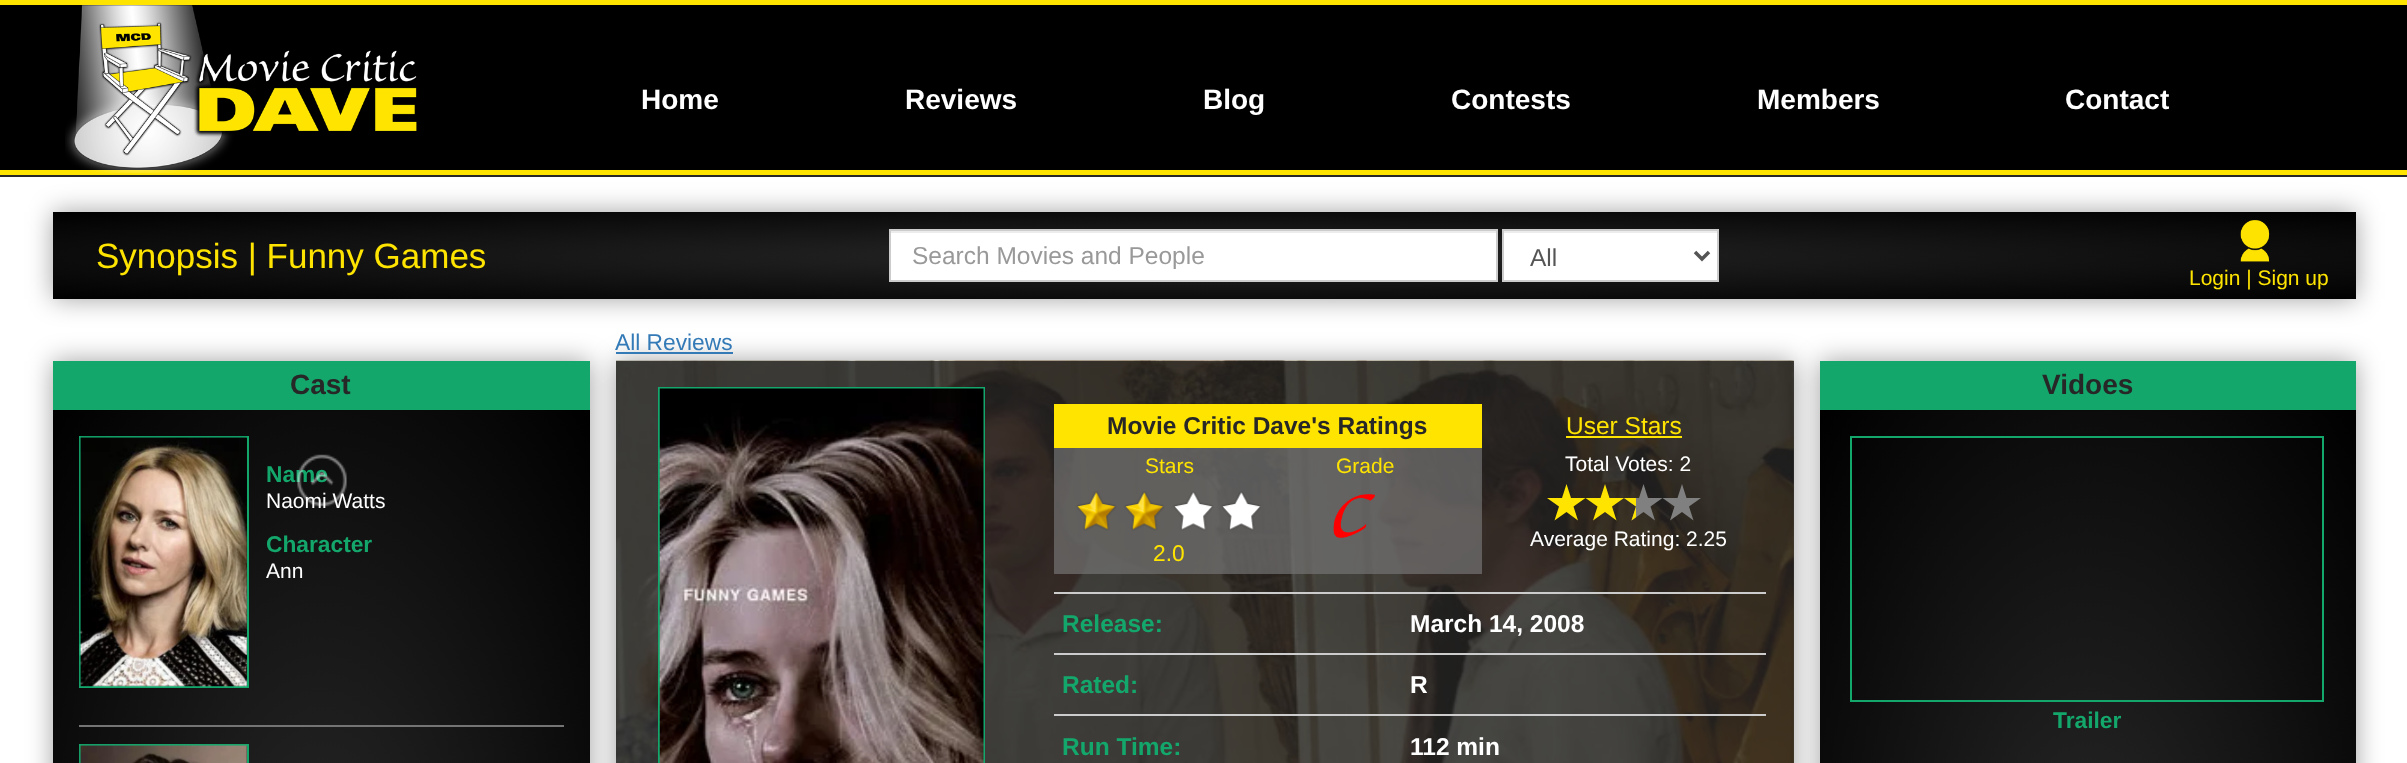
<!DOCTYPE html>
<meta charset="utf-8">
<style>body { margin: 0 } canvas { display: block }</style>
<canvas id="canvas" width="2407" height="763"></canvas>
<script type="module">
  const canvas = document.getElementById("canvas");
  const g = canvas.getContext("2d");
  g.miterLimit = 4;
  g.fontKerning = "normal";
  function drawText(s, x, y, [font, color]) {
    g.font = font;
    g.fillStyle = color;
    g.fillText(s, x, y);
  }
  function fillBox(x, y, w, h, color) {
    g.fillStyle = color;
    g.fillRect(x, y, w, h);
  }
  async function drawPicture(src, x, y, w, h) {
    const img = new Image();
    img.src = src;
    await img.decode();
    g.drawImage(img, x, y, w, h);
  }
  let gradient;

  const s1 = ["bold 28px Liberation Sans", "#FFFFFF"];
  const s2 = ["35px Liberation Sans", "#FFE400"];
  const s3 = ["24.5px Liberation Sans", "#999999"];
  const s4 = ["24.5px Liberation Sans", "#555555"];
  const s5 = ["21px Liberation Sans", "#FFE400"];
  const s6 = ["bold 28px Liberation Sans", "#272727"];
  const s7 = ["bold 22.75px Liberation Sans", "#14A76C"];
  const s8 = ["21px Liberation Sans", "#FFFFFF"];
  const s9 = ["22.75px Liberation Sans", "#337AB7"];
  const s10 = ["bold 24.5px Liberation Sans", "#272727"];
  const s11 = ["22.75px Liberation Sans", "#FFE400"];
  const s12 = ["24.5px Liberation Sans", "#FFE400"];
  const s13 = ["bold 24.5px Liberation Sans", "#14A76C"];
  const s14 = ["bold 24.5px Liberation Sans", "#FFFFFF"];

  fillBox(0, 0, 2407, 763, "#FFFFFF");
  fillBox(0, 5, 2407, 165, "#000000");
  fillBox(0, 0, 2407, 5, "#FFE400");
  fillBox(0, 175, 2407, 2, "#272727");
  g.fillStyle = "rgba(0, 0, 0, 0.37)";
  g.filter = "blur(13px)";
  g.beginPath();
  g.rect(53, 212, 2303, 87);
  g.fill();
  g.filter = "none";
  fillBox(0, 170, 2407, 5, "#FFE400");
  await drawPicture("pic1.png", 65, 5, 352, 169);
  drawText("Home", 641, 109, s1);
  drawText("Reviews", 905, 109, s1);
  drawText("Blog", 1203, 109, s1);
  drawText("Contests", 1451, 109, s1);
  drawText("Members", 1757, 109, s1);
  drawText("Contact", 2065, 109, s1);
  gradient = g.createRadialGradient(1204, 6722.06, 0, 1204, 6722.06, 1628);
  gradient.addColorStop(0, "#272727");
  gradient.addColorStop(1, "#000000");
  g.fillStyle = gradient;
  g.beginPath();
  g.rect(53, 212, 2303, 87);
  g.save();
  g.clip();
  g.scale(1, 62 / 1628);
  g.fillRect(0, 0, 2407, 20035);
  g.restore();
  drawText("Synopsis | Funny Games", 96, 268, s2);
  fillBox(891, 233, 605, 47, "#FFFFFF");
  fillBox(891, 231, 605, 2, "#ECECEC");
  g.strokeStyle = "#CCCCCC";
  g.lineWidth = 2;
  g.strokeRect(890, 230, 607, 51);
  drawText("Search Movies and People", 912, 264, s3);
  fillBox(1504, 233, 213, 47, "#FFFFFF");
  fillBox(1503, 231, 214, 2, "#ECECEC");
  g.strokeRect(1503, 230, 215, 51);
  g.beginPath();
  g.moveTo(1695, 252);
  g.lineTo(1702, 259);
  g.lineTo(1709, 252);
  g.strokeStyle = "#555555";
  g.lineWidth = 3.5;
  g.stroke();
  drawText("All", 1530, 266, s4);
  await drawPicture("pic2.png", 2240, 220, 30, 42);
  drawText("Login | Sign up", 2189, 285, s5);
  g.fillStyle = "rgba(0, 0, 0, 0.37)";
  g.filter = "blur(13px)";
  g.beginPath();
  g.rect(616, 361, 1178, 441);
  g.fill();
  g.filter = "none";
  fillBox(616, 352, 117, 2, "#337AB7");
  await drawPicture("pic6.png", 616, 360, 1178, 403);
  fillBox(616, 361, 1178, 402, "rgba(36, 36, 36, 0.8)");
  g.fillStyle = "rgba(0, 0, 0, 0.37)";
  g.filter = "blur(13px)";
  g.beginPath();
  g.rect(53, 361, 537, 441);
  g.fill();
  g.filter = "none";
  fillBox(53, 361, 537, 49, "#14A76C");
  drawText("Cast", 290, 394, s6);
  gradient = g.createRadialGradient(321, 497.18, 0, 321, 497.18, 380);
  gradient.addColorStop(0, "#272727");
  gradient.addColorStop(1, "#000000");
  g.fillStyle = gradient;
  g.beginPath();
  g.rect(53, 410, 537, 353);
  g.save();
  g.clip();
  g.scale(1, 681 / 380);
  g.fillRect(0, 0, 2407, 426);
  g.restore();
  drawText("Name", 266, 482, s7);
  drawText("Naomi Watts", 266, 508, s8);
  await drawPicture("pic3.png", 297, 454, 50, 53);
  fillBox(79, 725, 485, 2, "#747474");
  g.strokeStyle = "#14A76C";
  g.lineWidth = 2;
  g.strokeRect(80, 437, 168, 250);
  await drawPicture("pic4.png", 79, 436, 168, 251);
  drawText("Character", 266, 552, s7);
  drawText("Ann", 266, 578, s8);
  g.strokeRect(80, 745, 168, 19);
  await drawPicture("pic5.png", 79, 744, 168, 19);
  drawText("All Reviews", 615, 350, s9);
  g.strokeRect(659, 388, 325, 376);
  await drawPicture("pic7.png", 659, 388, 325, 375);
  fillBox(1054, 592, 712, 2, "#CCCCCC");
  fillBox(1054, 448, 428, 126, "rgba(116, 116, 116, 0.7)");
  fillBox(1054, 404, 428, 44, "#FFE400");
  drawText("Movie Critic Dave's Ratings", 1107, 434, s10);
  drawText("Stars", 1145, 473, s5);
  await drawPicture("pic8.png", 1076, 491, 185, 40);
  drawText("2.0", 1153, 561, s11);
  drawText("Grade", 1336, 473, s5);
  await drawPicture("pic9.png", 1333, 494, 42, 44);
  drawText("User Stars", 1566, 434, s12);
  fillBox(1566, 436, 116, 2, "#FFE400");
  drawText("Total Votes: 2", 1565, 471, s8);
  g.fillStyle = "#FFE400";
  g.beginPath();
  g.moveTo(1566.5, 484);
  g.lineTo(1571, 498);
  g.lineTo(1585.5, 498);
  g.lineTo(1573.5, 506.5);
  g.lineTo(1578, 520.5);
  g.lineTo(1566.5, 512);
  g.lineTo(1554.5, 520.5);
  g.lineTo(1559, 506.5);
  g.lineTo(1547, 498);
  g.lineTo(1562, 498);
  g.closePath();
  g.fill();
  g.beginPath();
  g.moveTo(1605, 484);
  g.lineTo(1609.5, 498);
  g.lineTo(1624, 498);
  g.lineTo(1612, 506.5);
  g.lineTo(1616.5, 520.5);
  g.lineTo(1605, 512);
  g.lineTo(1593, 520.5);
  g.lineTo(1597.5, 506.5);
  g.lineTo(1585.5, 498);
  g.lineTo(1600.5, 498);
  g.closePath();
  g.fill();
  g.fillStyle = "#808080";
  g.beginPath();
  g.moveTo(1643.5, 484);
  g.lineTo(1648, 498);
  g.lineTo(1662.5, 498);
  g.lineTo(1650.5, 506.5);
  g.lineTo(1655, 520.5);
  g.lineTo(1643.5, 512);
  g.lineTo(1631.5, 520.5);
  g.lineTo(1636, 506.5);
  g.lineTo(1624, 498);
  g.lineTo(1639, 498);
  g.closePath();
  g.fill();
  g.save();
  g.beginPath();
  g.rect(1624, 483, 12, 39);
  g.clip();
  g.fillStyle = "#FFE400";
  g.beginPath();
  g.moveTo(1643.5, 484);
  g.lineTo(1648, 498);
  g.lineTo(1662.5, 498);
  g.lineTo(1650.5, 506.5);
  g.lineTo(1655, 520.5);
  g.lineTo(1643.5, 512);
  g.lineTo(1631.5, 520.5);
  g.lineTo(1636, 506.5);
  g.lineTo(1624, 498);
  g.lineTo(1639, 498);
  g.closePath();
  g.fill();
  g.restore();
  g.beginPath();
  g.moveTo(1682, 484);
  g.lineTo(1686.5, 498);
  g.lineTo(1701, 498);
  g.lineTo(1689, 506.5);
  g.lineTo(1693.5, 520.5);
  g.lineTo(1682, 512);
  g.lineTo(1670, 520.5);
  g.lineTo(1674.5, 506.5);
  g.lineTo(1662.5, 498);
  g.lineTo(1677.5, 498);
  g.closePath();
  g.fill();
  drawText("Average Rating: 2.25", 1530, 546, s8);
  fillBox(1054, 653, 712, 2, "#CCCCCC");
  drawText("Release:", 1062, 632, s13);
  drawText("March 14, 2008", 1410, 632, s14);
  fillBox(1054, 714, 712, 2, "#CCCCCC");
  drawText("Rated:", 1062, 693, s13);
  drawText("R", 1410, 693, s14);
  drawText("Run Time:", 1062, 755, s13);
  drawText("112 min", 1410, 755, s14);
  g.fillStyle = "rgba(0, 0, 0, 0.37)";
  g.filter = "blur(13px)";
  g.beginPath();
  g.rect(1820, 361, 536, 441);
  g.fill();
  g.filter = "none";
  fillBox(1820, 361, 536, 49, "#14A76C");
  drawText("Vidoes", 2042, 394, s6);
  gradient = g.createRadialGradient(2088, 495.87, 0, 2088, 495.87, 379);
  gradient.addColorStop(0, "#272727");
  gradient.addColorStop(1, "#000000");
  g.fillStyle = gradient;
  g.beginPath();
  g.rect(1820, 410, 536, 353);
  g.save();
  g.clip();
  g.scale(1, 681 / 379);
  g.fillRect(0, 0, 2407, 425);
  g.restore();
  g.strokeRect(1851, 437, 472, 264);
  drawText("Trailer", 2053, 728, s7);
</script>
